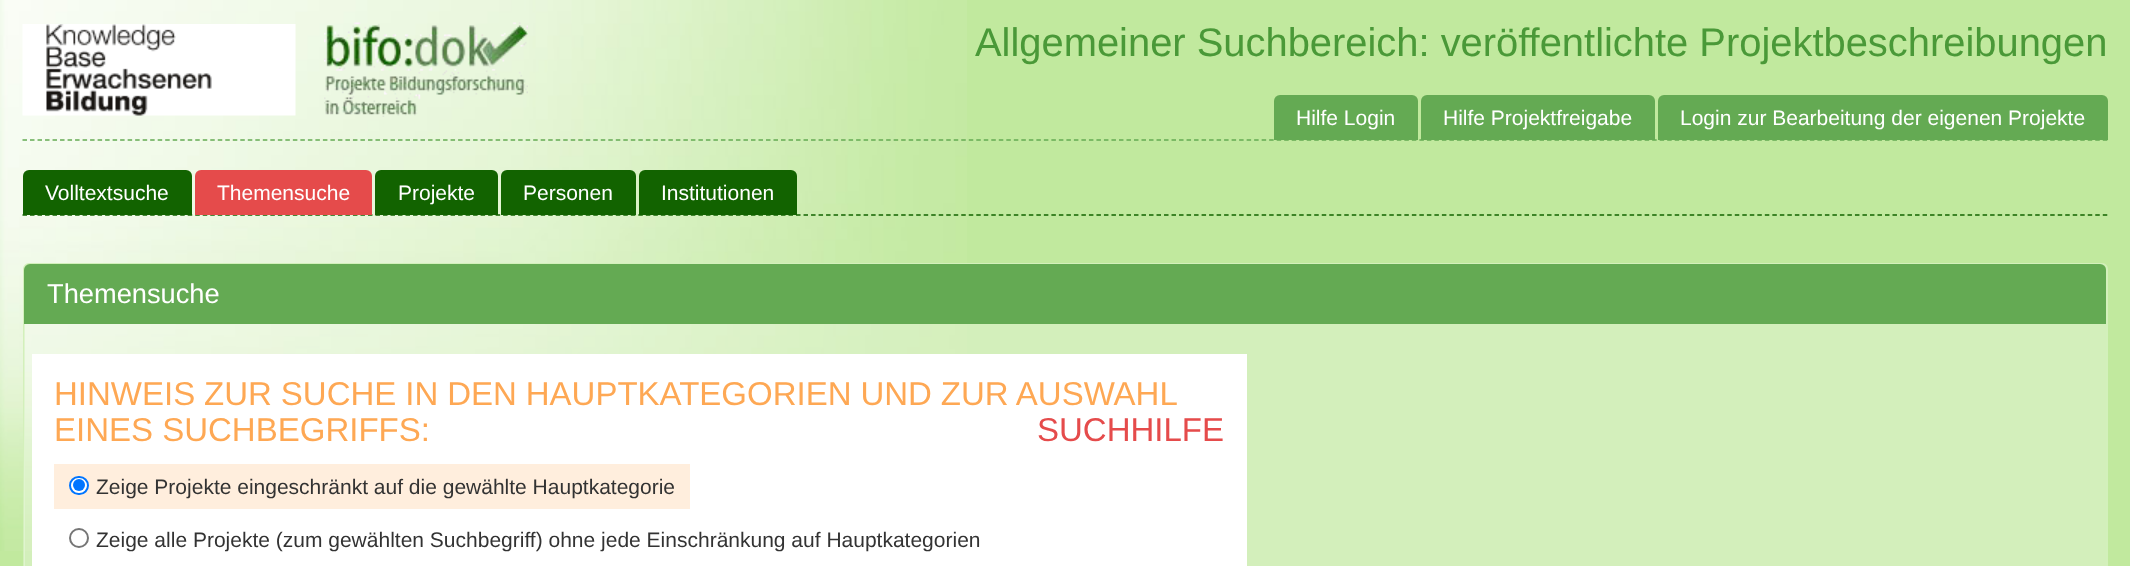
<!DOCTYPE html>
<meta charset="utf-8">
<style>body { margin: 0 } canvas { display: block }</style>
<canvas id="canvas" width="2130" height="566"></canvas>
<script type="module">
  const canvas = document.getElementById("canvas");
  const g = canvas.getContext("2d");
  g.miterLimit = 4;
  g.fontKerning = "normal";
  function drawText(s, x, y, [font, color]) {
    g.font = font;
    g.fillStyle = color;
    g.fillText(s, x, y);
  }
  function fillBox(x, y, w, h, color) {
    g.fillStyle = color;
    g.fillRect(x, y, w, h);
  }
  async function drawPicture(src, x, y, w, h) {
    const img = new Image();
    img.src = src;
    await img.decode();
    g.drawImage(img, x, y, w, h);
  }

  const s1 = ["39.9px Liberation Sans", "#4A9938"];
  const s2 = ["21px Liberation Sans", "#FFFFFF"];
  const s3 = ["27.25px Liberation Sans", "#FFFFFF"];
  const s4 = ["33px Liberation Sans", "#FEA854"];
  const s5 = ["33px Liberation Sans", "#E54B4B"];
  const s6 = ["21px Liberation Sans", "#333333"];

  fillBox(0, 0, 2130, 566, "#C1E99E");
  await drawPicture("pic1.png", 0, 0, 967, 551);
  g.beginPath();
  g.moveTo(22.5, 140);
  g.lineTo(2107.5, 140);
  g.strokeStyle = "#64AA53";
  g.lineWidth = 1.5;
  g.setLineDash([4.5, 3.01]);
  g.stroke();
  await drawPicture("pic2.png", 22, 24, 274, 92);
  await drawPicture("pic3.png", 324, 22, 204, 95);
  drawText("Allgemeiner Suchbereich: veröffentlichte Projektbeschreibungen", 975, 56, s1);
  g.beginPath();
  g.moveTo(22.5, 215);
  g.lineTo(2107.5, 215);
  g.strokeStyle = "#126300";
  g.stroke();
  g.fillStyle = "#64AA53";
  g.beginPath();
  g.roundRect(1274, 95, 144, 45, [6, 6, 0, 0]);
  g.fill();
  drawText("Hilfe Login", 1296, 125, s2);
  g.fillStyle = "#64AA53";
  g.beginPath();
  g.roundRect(1421, 95, 234, 45, [6, 6, 0, 0]);
  g.fill();
  drawText("Hilfe Projektfreigabe", 1443, 125, s2);
  g.fillStyle = "#64AA53";
  g.beginPath();
  g.roundRect(1658, 95, 450, 45, [6, 6, 0, 0]);
  g.fill();
  drawText("Login zur Bearbeitung der eigenen Projekte", 1680, 125, s2);
  g.fillStyle = "#126300";
  g.beginPath();
  g.roundRect(23, 170, 169, 45, [6, 6, 0, 0]);
  g.fill();
  drawText("Volltextsuche", 45, 200, s2);
  g.fillStyle = "#E54B4B";
  g.beginPath();
  g.roundRect(195, 170, 177, 45, [6, 6, 0, 0]);
  g.fill();
  drawText("Themensuche", 217, 200, s2);
  g.fillStyle = "#126300";
  g.beginPath();
  g.roundRect(375, 170, 123, 45, [6, 6, 0, 0]);
  g.fill();
  drawText("Projekte", 398, 200, s2);
  g.fillStyle = "#126300";
  g.beginPath();
  g.roundRect(501, 170, 135, 45, [6, 6, 0, 0]);
  g.fill();
  drawText("Personen", 523, 200, s2);
  g.fillStyle = "#126300";
  g.beginPath();
  g.roundRect(639, 170, 158, 45, [6, 6, 0, 0]);
  g.fill();
  drawText("Institutionen", 661, 200, s2);
  g.beginPath();
  g.roundRect(24, 264, 2083, 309, 5);
  g.strokeStyle = "#D3F0BB";
  g.lineWidth = 2;
  g.setLineDash([]);
  g.stroke();
  g.fillStyle = "#64AA53";
  g.beginPath();
  g.roundRect(24, 264, 2082, 60, [6, 6, 0, 0]);
  g.fill();
  drawText("Themensuche", 47, 303, s3);
  fillBox(24, 324, 2082, 242, "rgba(255, 255, 255, 0.3)");
  fillBox(32, 354, 1215, 212, "#FFFFFF");
  g.wordSpacing = "-0.25px";
  drawText("HINWEIS ZUR SUCHE IN DEN HAUPTKATEGORIEN UND ZUR AUSWAHL", 54, 405, s4);
  g.wordSpacing = "0px";
  drawText("EINES SUCHBEGRIFFS:", 54, 441, s4);
  drawText("SUCHHILFE", 1037, 441, s5);
  fillBox(54, 464, 636, 45, "#FFEEDD");
  g.fillStyle = "#FFFFFF";
  g.beginPath();
  g.roundRect(70, 477, 18, 17, 8.5);
  g.fill();
  g.strokeStyle = "#0075FF";
  g.stroke();
  g.fillStyle = "#0075FF";
  g.beginPath();
  g.arc(79, 485, 6, 0, Math.PI * 2);
  g.fill();
  drawText("Zeige Projekte eingeschränkt auf die gewählte Hauptkategorie", 96, 494, s6);
  g.beginPath();
  g.arc(79, 538, 9, 0, Math.PI * 2);
  g.strokeStyle = "#767676";
  g.stroke();
  drawText("Zeige alle Projekte (zum gewählten Suchbegriff) ohne jede Einschränkung auf Hauptkategorien", 96, 547, s6);
</script>
